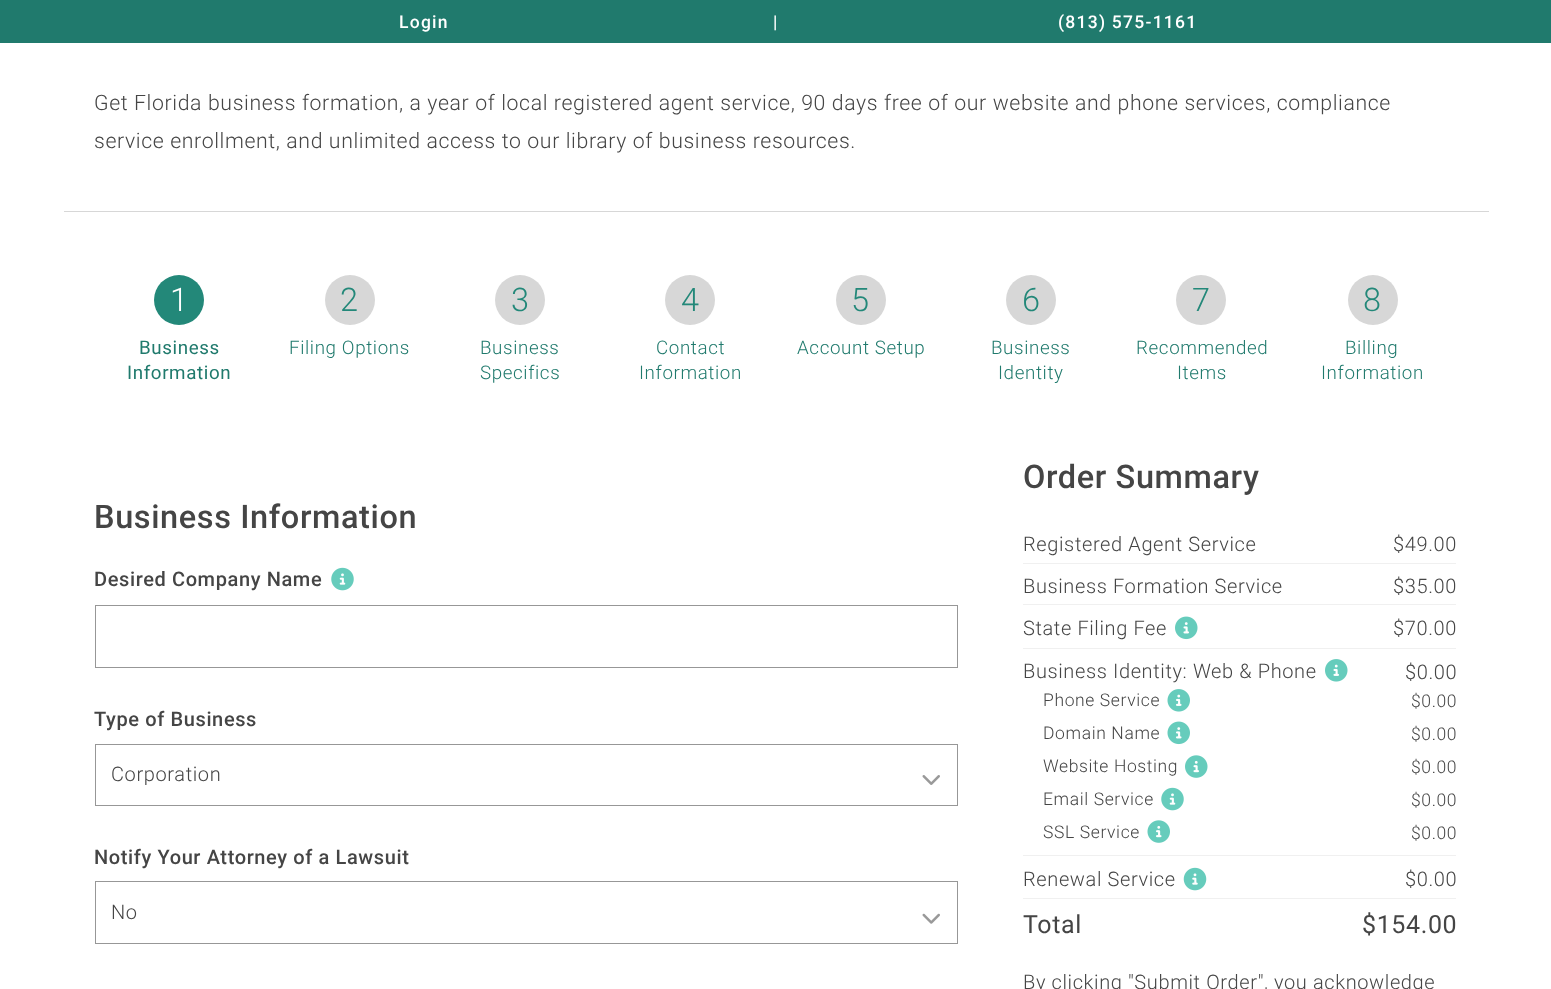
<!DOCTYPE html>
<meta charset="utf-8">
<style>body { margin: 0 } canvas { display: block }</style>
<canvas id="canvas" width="1551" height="989"></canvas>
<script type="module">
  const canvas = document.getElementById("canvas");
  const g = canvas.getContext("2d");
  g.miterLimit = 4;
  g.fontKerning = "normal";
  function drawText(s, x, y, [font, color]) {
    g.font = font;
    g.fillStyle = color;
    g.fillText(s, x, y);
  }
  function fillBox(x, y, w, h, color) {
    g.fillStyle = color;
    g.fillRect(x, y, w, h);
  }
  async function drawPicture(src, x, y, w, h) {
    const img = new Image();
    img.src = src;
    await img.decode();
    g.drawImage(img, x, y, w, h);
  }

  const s1 = ["500 17.5px Roboto", "#FFFFFF"];
  const s2 = ["300 21.25px Roboto", "#454545"];
  const s3 = ["300 32.5px Roboto", "#FFFFFF"];
  const s4 = ["18.75px Roboto", "#207A6D"];
  const s5 = ["300 32.5px Roboto", "#238879"];
  const s6 = ["300 18.75px Roboto", "#207A6D"];
  const s7 = ["500 32.5px Roboto", "#454545"];
  const s8 = ["500 20px Roboto", "#454545"];
  const s9 = ["300 20px Roboto", "#454545"];
  const s10 = ["300 17.5px Roboto", "#454545"];
  const s11 = ["25px Roboto", "#454545"];

  fillBox(0, 0, 1551, 989, "#FFFFFF");
  fillBox(0, 0, 1551, 43, "#207A6D");
  g.letterSpacing = "1.25px";
  drawText("Login", 399, 28, s1);
  drawText("|", 773, 28, s1);
  drawText("(813) 575-1161", 1058, 28, s1);
  fillBox(64, 211, 1425, 1, "#D7D7D7");
  g.letterSpacing = "0.62px";
  drawText("Get Florida business formation, a year of local registered agent service, 90 days free of our website and phone services, compliance", 94, 110, s2);
  drawText("service enrollment, and unlimited access to our library of business resources.", 94, 148, s2);
  g.fillStyle = "#238879";
  g.beginPath();
  g.arc(179, 300, 25, 0, Math.PI * 2);
  g.fill();
  drawText("1", 170, 311, s3);
  drawText("Business", 139, 354, s4);
  drawText("Information", 127, 379, s4);
  g.fillStyle = "#D7D7D7";
  g.beginPath();
  g.arc(350, 300, 25, 0, Math.PI * 2);
  g.fill();
  drawText("2", 340, 311, s5);
  drawText("Filing Options", 289, 354, s6);
  g.fillStyle = "#D7D7D7";
  g.beginPath();
  g.arc(520, 300, 25, 0, Math.PI * 2);
  g.fill();
  drawText("3", 511, 311, s5);
  drawText("Business", 480, 354, s6);
  drawText("Specifics", 480, 379, s6);
  g.fillStyle = "#D7D7D7";
  g.beginPath();
  g.arc(690, 300, 25, 0, Math.PI * 2);
  g.fill();
  drawText("4", 681, 311, s5);
  drawText("Contact", 656, 354, s6);
  drawText("Information", 639, 379, s6);
  g.fillStyle = "#D7D7D7";
  g.beginPath();
  g.arc(861, 300, 25, 0, Math.PI * 2);
  g.fill();
  drawText("5", 851, 311, s5);
  drawText("Account Setup", 797, 354, s6);
  g.fillStyle = "#D7D7D7";
  g.beginPath();
  g.arc(1031, 300, 25, 0, Math.PI * 2);
  g.fill();
  drawText("6", 1022, 311, s5);
  drawText("Business", 991, 354, s6);
  drawText("Identity", 998, 379, s6);
  g.fillStyle = "#D7D7D7";
  g.beginPath();
  g.arc(1201, 300, 25, 0, Math.PI * 2);
  g.fill();
  drawText("7", 1192, 311, s5);
  drawText("Recommended", 1136, 354, s6);
  drawText("Items", 1177, 379, s6);
  g.fillStyle = "#D7D7D7";
  g.beginPath();
  g.arc(1373, 300, 25, 0, Math.PI * 2);
  g.fill();
  drawText("8", 1363, 311, s5);
  drawText("Billing", 1345, 354, s6);
  drawText("Information", 1321, 379, s6);
  drawText("Business Information", 94, 528, s7);
  drawText("Desired Company Name", 94, 586, s8);
  await drawPicture("pic1.png", 331, 567, 23, 24);
  g.strokeStyle = "#979797";
  g.strokeRect(95.5, 605.5, 862, 62);
  drawText("Type of Business", 94, 726, s8);
  g.strokeRect(95.5, 744.5, 862, 61);
  drawText("Corporation", 111, 781, s9);
  await drawPicture("pic2.png", 922, 775, 18, 10);
  drawText("Notify Your Attorney of a Lawsuit", 94, 864, s8);
  g.strokeRect(95.5, 881.5, 862, 62);
  drawText("No", 111, 919, s9);
  await drawPicture("pic3.png", 922, 913, 18, 11);
  drawText("Order Summary", 1023, 488, s7);
  fillBox(1023, 563, 433, 1, "#F0F0F0");
  drawText("Registered Agent Service", 1023, 551, s9);
  drawText("$49.00", 1393, 551, s9);
  fillBox(1023, 604, 433, 1, "#F0F0F0");
  drawText("Business Formation Service", 1023, 593, s9);
  drawText("$35.00", 1393, 593, s9);
  fillBox(1023, 648, 433, 1, "#F0F0F0");
  drawText("State Filing Fee", 1023, 635, s9);
  await drawPicture("pic4.png", 1175, 616, 23, 24);
  drawText("$70.00", 1393, 635, s9);
  fillBox(1023, 855, 433, 1, "#F0F0F0");
  drawText("Business Identity: Web & Phone", 1023, 678, s9);
  await drawPicture("pic5.png", 1325, 659, 23, 23);
  drawText("$0.00", 1405, 679, s9);
  drawText("Phone Service", 1043, 706, s10);
  await drawPicture("pic6.png", 1167, 689, 23, 23);
  drawText("$0.00", 1411, 707, s10);
  drawText("Domain Name", 1043, 739, s10);
  await drawPicture("pic7.png", 1167, 721, 23, 24);
  drawText("$0.00", 1411, 740, s10);
  drawText("Website Hosting", 1043, 772, s10);
  await drawPicture("pic8.png", 1185, 755, 23, 23);
  drawText("$0.00", 1411, 773, s10);
  drawText("Email Service", 1043, 805, s10);
  await drawPicture("pic1.png", 1161, 787, 23, 24);
  drawText("$0.00", 1411, 806, s10);
  drawText("SSL Service", 1043, 838, s10);
  await drawPicture("pic9.png", 1147, 820, 23, 23);
  drawText("$0.00", 1411, 839, s10);
  fillBox(1023, 898, 433, 1, "#F0F0F0");
  drawText("Renewal Service", 1023, 886, s9);
  await drawPicture("pic10.png", 1183, 867, 24, 24);
  drawText("$0.00", 1405, 886, s9);
  drawText("Total", 1023, 933, s11);
  drawText("$154.00", 1362, 933, s11);
  drawText("By clicking \"Submit Order\", you acknowledge", 1023, 989, s9);
</script>
